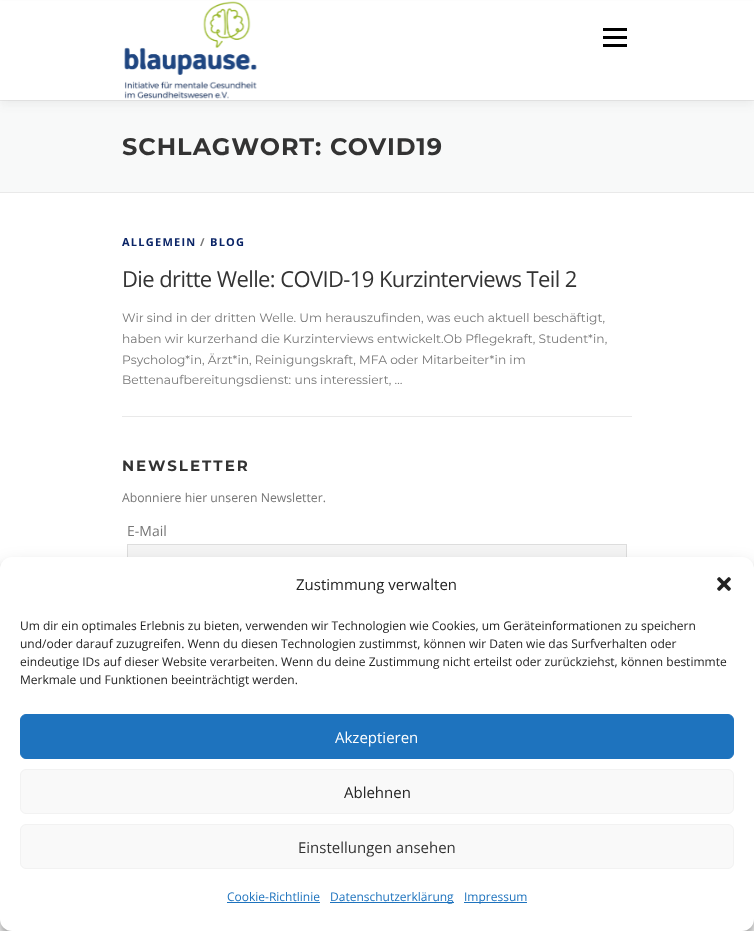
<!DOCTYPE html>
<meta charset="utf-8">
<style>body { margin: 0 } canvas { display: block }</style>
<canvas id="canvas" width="754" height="931"></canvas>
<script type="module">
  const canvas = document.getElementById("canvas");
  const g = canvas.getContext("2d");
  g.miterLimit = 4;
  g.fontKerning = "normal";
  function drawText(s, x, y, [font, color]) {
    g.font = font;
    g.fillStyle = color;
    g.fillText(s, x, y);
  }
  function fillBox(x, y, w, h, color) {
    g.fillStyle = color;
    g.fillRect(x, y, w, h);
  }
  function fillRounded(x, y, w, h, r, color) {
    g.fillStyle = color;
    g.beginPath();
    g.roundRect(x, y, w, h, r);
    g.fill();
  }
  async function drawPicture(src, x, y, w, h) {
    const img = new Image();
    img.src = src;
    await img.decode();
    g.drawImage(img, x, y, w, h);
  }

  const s1 = ["bold 24px Montserrat", "#333333"];
  const s2 = ["bold 11px Open Sans", "#0A2466"];
  const s3 = ["bold 11px Open Sans", "#777777"];
  const s4 = ["22px Open Sans", "#333333"];
  const s5 = ["12.25px Montserrat", "#777777"];
  const s6 = ["bold 15px Montserrat", "#333333"];
  const s7 = ["12.25px Open Sans", "#777777"];
  const s8 = ["14px Open Sans", "#777777"];
  const s9 = ["15px Open Sans", "#222222"];
  const s10 = ["12px Open Sans", "#222222"];
  const s11 = ["15px Open Sans", "#FFFFFF"];
  const s12 = ["15px Open Sans", "#333333"];
  const s13 = ["12px Open Sans", "#1E73BE"];

  fillBox(0, 0, 754, 931, "#FFFFFF");
  fillBox(0, 101, 754, 91, "#F8F9F9");
  fillBox(0, 100, 754, 1, "#E9E9E9");
  g.fillStyle = "rgba(50, 50, 50, 0.06)";
  g.filter = "blur(5px)";
  g.beginPath();
  g.rect(0, 5, 754, 100);
  g.fill();
  g.filter = "none";
  fillBox(0, 1, 754, 99, "#FFFFFF");
  await drawPicture("pic1.png", 124, 1, 133, 98);
  fillBox(603, 36, 24, 3, "#000000");
  fillBox(603, 28, 24, 3, "#000000");
  fillBox(603, 44, 24, 3, "#000000");
  fillBox(0, 192, 754, 1, "#E9E9E9");
  g.letterSpacing = "1px";
  drawText("SCHLAGWORT: COVID19", 122, 155, s1);
  fillBox(122, 416, 510, 1, "#E9E9E9");
  g.letterSpacing = "1.25px";
  drawText("ALLGEMEIN", 122, 246, s2);
  drawText("/", 200, 246, s3);
  drawText("BLOG", 210, 246, s2);
  g.letterSpacing = "-0.6px";
  drawText("Die dritte Welle: COVID-19 Kurzinterviews Teil 2", 122, 287, s4);
  g.letterSpacing = "0px";
  drawText("Wir sind in der dritten Welle. Um herauszufinden, was euch aktuell beschäftigt,", 122, 322, s5);
  drawText("haben wir kurzerhand die Kurzinterviews entwickelt.Ob Pflegekraft, Student*in,", 122, 343, s5);
  drawText("Psycholog*in, Ärzt*in, Reinigungskraft, MFA oder Mitarbeiter*in im", 122, 364, s5);
  drawText("Bettenaufbereitungsdienst: uns interessiert, …", 122, 384, s5);
  g.letterSpacing = "2px";
  drawText("NEWSLETTER", 122, 471, s6);
  g.letterSpacing = "0px";
  drawText("Abonniere hier unseren Newsletter.", 122, 502, s7);
  drawText("E-Mail", 127, 536, s8);
  fillBox(128, 545, 498, 12, "#F4F4F4");
  g.strokeStyle = "#DDDDDD";
  g.strokeRect(127.5, 544.5, 499, 40);
  g.fillStyle = "rgba(0, 0, 0, 0.23)";
  g.filter = "blur(3px)";
  g.beginPath();
  g.roundRect(0, 563, 754, 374, 12);
  g.fill();
  g.filter = "none";
  g.fillStyle = "rgba(0, 0, 0, 0.19)";
  g.filter = "blur(10px)";
  g.beginPath();
  g.roundRect(0, 567, 754, 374, 12);
  g.fill();
  g.filter = "none";
  fillRounded(0, 557, 754, 374, 12, "#FFFFFF");
  drawText("Zustimmung verwalten", 296, 590, s9);
  await drawPicture("pic2.png", 717, 577, 14, 14);
  drawText("Um dir ein optimales Erlebnis zu bieten, verwenden wir Technologien wie Cookies, um Geräteinformationen zu speichern", 20, 630, s10);
  drawText("und/oder darauf zuzugreifen. Wenn du diesen Technologien zustimmst, können wir Daten wie das Surfverhalten oder", 20, 648, s10);
  drawText("eindeutige IDs auf dieser Website verarbeiten. Wenn du deine Zustimmung nicht erteilst oder zurückziehst, können bestimmte", 20, 666, s10);
  drawText("Merkmale und Funktionen beeinträchtigt werden.", 20, 684, s10);
  g.fillStyle = "#1E73BE";
  g.beginPath();
  g.roundRect(20.5, 714.5, 713, 44, 5.5);
  g.fill();
  g.strokeStyle = "#1E73BE";
  g.stroke();
  drawText("Akzeptieren", 335, 743, s11);
  g.fillStyle = "#F9F9F9";
  g.beginPath();
  g.roundRect(20.5, 769.5, 713, 44, 5.5);
  g.fill();
  g.strokeStyle = "#F2F2F2";
  g.stroke();
  drawText("Ablehnen", 344, 798, s9);
  g.fillStyle = "#F9F9F9";
  g.beginPath();
  g.roundRect(20.5, 824.5, 713, 44, 5.5);
  g.fill();
  g.stroke();
  drawText("Einstellungen ansehen", 298, 853, s12);
  drawText("Cookie-Richtlinie", 227, 901, s13);
  fillBox(227, 902, 93, 1, "#1E73BE");
  fillBox(330, 902, 124, 1, "#1E73BE");
  drawText("Datenschutzerklärung", 330, 901, s13);
  fillBox(464, 902, 63, 1, "#1E73BE");
  drawText("Impressum", 464, 901, s13);
</script>
